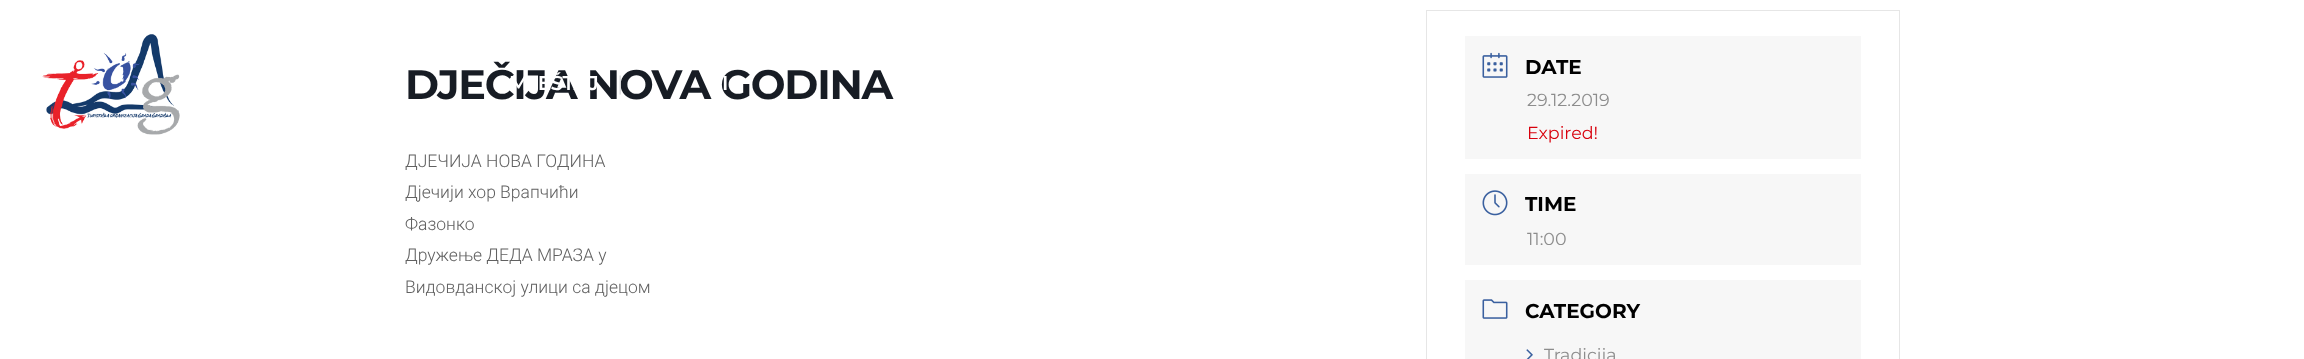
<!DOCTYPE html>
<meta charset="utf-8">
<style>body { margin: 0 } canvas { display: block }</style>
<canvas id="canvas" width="2304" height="359"></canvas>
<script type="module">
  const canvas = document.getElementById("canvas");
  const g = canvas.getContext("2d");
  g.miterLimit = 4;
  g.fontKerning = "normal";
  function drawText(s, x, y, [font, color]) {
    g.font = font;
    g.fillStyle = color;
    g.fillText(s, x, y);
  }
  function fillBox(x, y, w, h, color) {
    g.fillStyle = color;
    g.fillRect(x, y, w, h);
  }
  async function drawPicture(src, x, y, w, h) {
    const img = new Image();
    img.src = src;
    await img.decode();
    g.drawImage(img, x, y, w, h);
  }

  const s1 = ["bold 41.25px Montserrat", "#171C24"];
  const s2 = ["300 17.5px Roboto", "#616161"];
  const s3 = ["bold 20px Montserrat", "#000000"];
  const s4 = ["17.5px Montserrat", "#8D8D8D"];
  const s5 = ["17.5px Montserrat", "#D8000C"];
  const s6 = ["600 20px Montserrat", "#FFFFFF"];
  const s7 = ["19px Open Sans", "#DBDCDD"];

  fillBox(0, 0, 2304, 359, "#FFFFFF");
  g.letterSpacing = "-1.25px";
  drawText("DJEČIJA NOVA GODINA", 405, 99, s1);
  g.letterSpacing = "0px";
  drawText("ДЈЕЧИЈА НОВА ГОДИНА", 405, 167, s2);
  drawText("Дјечији хор Врапчићи", 405, 198, s2);
  drawText("Фазонко", 405, 230, s2);
  drawText("Дружење ДЕДА МРАЗА у", 405, 261, s2);
  drawText("Видовданској улици са дјецом", 405, 293, s2);
  g.strokeStyle = "#E6E6E6";
  g.strokeRect(1426.5, 10.5, 473, 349);
  fillBox(1465, 36, 396, 123, "#F7F7F7");
  await drawPicture("pic1.png", 1482, 52, 26, 26);
  drawText("DATE", 1525, 74, s3);
  drawText("29.12.2019", 1527, 106, s4);
  drawText("Expired!", 1527, 139, s5);
  fillBox(1465, 174, 396, 91, "#F7F7F7");
  await drawPicture("pic2.png", 1482, 190, 26, 26);
  drawText("TIME", 1525, 211, s3);
  drawText("11:00", 1527, 245, s4);
  fillBox(1465, 280, 396, 79, "#F7F7F7");
  await drawPicture("pic3.png", 1482, 299, 26, 20);
  drawText("CATEGORY", 1525, 318, s3);
  await drawPicture("pic4.png", 1526, 349, 7, 10);
  drawText("Tradicija", 1544, 361, s4);
  await drawPicture("pic5.png", 42, 34, 138, 101);
  g.letterSpacing = "-0.5px";
  drawText("MJEŠTAJ", 509, 90, s6);
  g.letterSpacing = "0px";
  drawText("|", 615, 90, s7);
  g.letterSpacing = "-0.5px";
  drawText("I", 722, 90, s6);
</script>
